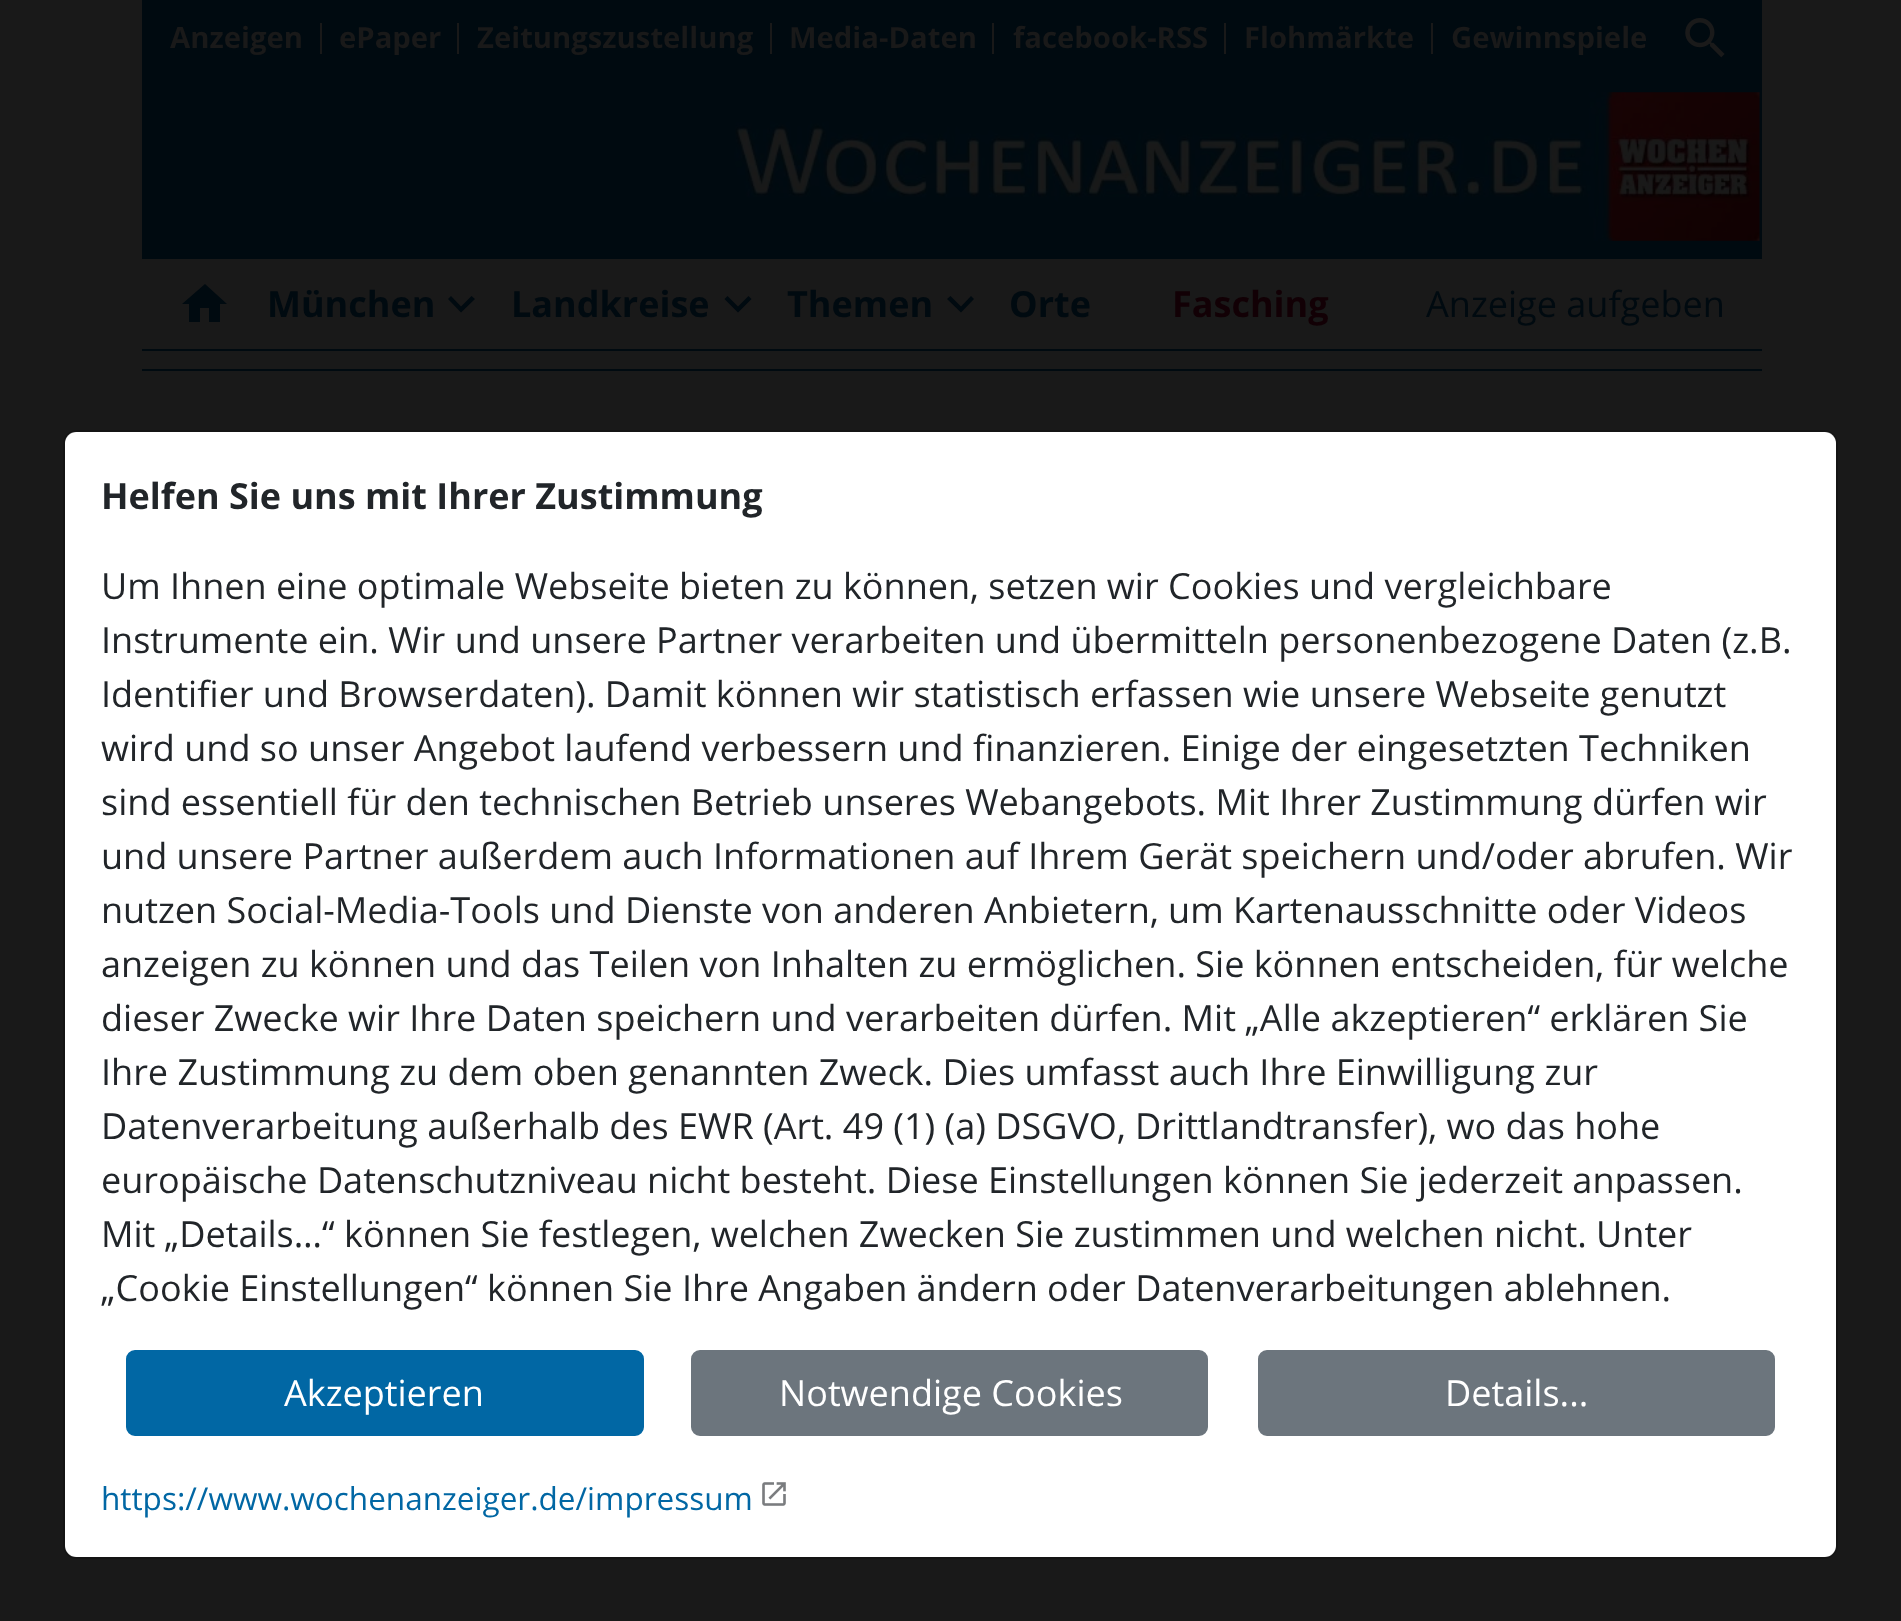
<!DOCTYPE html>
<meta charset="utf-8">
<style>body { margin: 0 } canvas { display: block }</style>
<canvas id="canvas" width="1901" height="1621"></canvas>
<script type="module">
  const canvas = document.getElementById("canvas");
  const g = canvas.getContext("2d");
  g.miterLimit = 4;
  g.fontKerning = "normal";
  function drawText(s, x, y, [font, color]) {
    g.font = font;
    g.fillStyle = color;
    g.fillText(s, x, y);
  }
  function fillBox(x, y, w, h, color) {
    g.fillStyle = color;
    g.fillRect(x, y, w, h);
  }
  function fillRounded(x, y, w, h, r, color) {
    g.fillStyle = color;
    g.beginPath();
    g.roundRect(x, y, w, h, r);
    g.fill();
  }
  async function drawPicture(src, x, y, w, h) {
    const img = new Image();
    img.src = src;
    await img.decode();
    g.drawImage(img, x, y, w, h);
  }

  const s1 = ["bold 29.25px Open Sans", "#191919"];
  const s2 = ["bold 36px Open Sans", "#000A10"];
  const s3 = ["bold 36px Open Sans", "#120005"];
  const s4 = ["36px Open Sans", "#000A10"];
  const s5 = ["bold 36px Open Sans", "#212529"];
  const s6 = ["36px Open Sans", "#212529"];
  const s7 = ["36px Open Sans", "#FFFFFF"];
  const s8 = ["31.5px Open Sans", "#0167A4"];

  fillBox(0, 0, 1901, 1621, "#191919");
  fillBox(142, 0, 1620, 259, "#000A10");
  await drawPicture("pic1.png", 734, 92, 1026, 149);
  drawText("Anzeigen", 170, 48, s1);
  fillBox(320, 23, 2, 31, "#191919");
  drawText("ePaper", 339, 48, s1);
  fillBox(457, 23, 2, 31, "#191919");
  drawText("Zeitungszustellung", 477, 48, s1);
  fillBox(770, 23, 2, 31, "#191919");
  drawText("Media-Daten", 789, 48, s1);
  fillBox(992, 23, 2, 31, "#191919");
  drawText("facebook-RSS", 1013, 48, s1);
  fillBox(1224, 23, 2, 31, "#191919");
  drawText("Flohmärkte", 1244, 48, s1);
  fillBox(1431, 23, 2, 31, "#191919");
  drawText("Gewinnspiele", 1451, 48, s1);
  await drawPicture("pic2.png", 1685, 18, 40, 40);
  g.fillStyle = "#000A10";
  g.beginPath();
  g.moveTo(200, 322);
  g.lineTo(189, 322);
  g.lineTo(189, 304);
  g.lineTo(182, 304);
  g.lineTo(205, 284);
  g.lineTo(227, 304);
  g.lineTo(220, 304);
  g.lineTo(220, 322);
  g.lineTo(209, 322);
  g.lineTo(209, 308);
  g.lineTo(200, 308);
  g.closePath();
  g.fill();
  drawText("München", 267, 317, s2);
  g.beginPath();
  g.moveTo(471.5, 296);
  g.lineTo(475, 299);
  g.lineTo(461, 312.5);
  g.lineTo(448, 299);
  g.lineTo(451, 296);
  g.lineTo(461, 306.5);
  g.closePath();
  g.fill();
  drawText("Landkreise", 511, 317, s2);
  g.beginPath();
  g.moveTo(748.5, 296);
  g.lineTo(751.5, 299);
  g.lineTo(738, 312.5);
  g.lineTo(724.5, 299);
  g.lineTo(727.5, 296);
  g.lineTo(738, 306.5);
  g.closePath();
  g.fill();
  drawText("Themen", 787, 317, s2);
  g.beginPath();
  g.moveTo(971, 296);
  g.lineTo(974, 299);
  g.lineTo(961, 312.5);
  g.lineTo(947, 299);
  g.lineTo(950.5, 296);
  g.lineTo(961, 306.5);
  g.closePath();
  g.fill();
  drawText("Orte", 1009, 317, s2);
  drawText("Fasching", 1172, 317, s3);
  drawText("Anzeige aufgeben", 1426, 317, s4);
  fillBox(142, 349, 1620, 2, "#000A10");
  fillBox(142, 369, 1620, 2, "#000A10");
  fillRounded(65, 432, 1771, 1125, 11, "#FFFFFF");
  g.beginPath();
  g.roundRect(64, 431, 1773, 1127, 13);
  g.strokeStyle = "rgba(0, 0, 0, 0.18)";
  g.lineWidth = 2;
  g.stroke();
  drawText("Helfen Sie uns mit Ihrer Zustimmung", 101, 509, s5);
  drawText("Um Ihnen eine optimale Webseite bieten zu können, setzen wir Cookies und vergleichbare", 101, 599, s6);
  drawText("Instrumente ein. Wir und unsere Partner verarbeiten und übermitteln personenbezogene Daten (z.B.", 101, 653, s6);
  drawText("Identifier und Browserdaten). Damit können wir statistisch erfassen wie unsere Webseite genutzt", 101, 707, s6);
  drawText("wird und so unser Angebot laufend verbessern und finanzieren. Einige der eingesetzten Techniken", 101, 761, s6);
  drawText("sind essentiell für den technischen Betrieb unseres Webangebots. Mit Ihrer Zustimmung dürfen wir", 101, 815, s6);
  drawText("und unsere Partner außerdem auch Informationen auf Ihrem Gerät speichern und/oder abrufen. Wir", 101, 869, s6);
  drawText("nutzen Social-Media-Tools und Dienste von anderen Anbietern, um Kartenausschnitte oder Videos", 101, 923, s6);
  drawText("anzeigen zu können und das Teilen von Inhalten zu ermöglichen. Sie können entscheiden, für welche", 101, 977, s6);
  drawText("dieser Zwecke wir Ihre Daten speichern und verarbeiten dürfen. Mit „Alle akzeptieren“ erklären Sie", 101, 1031, s6);
  drawText("Ihre Zustimmung zu dem oben genannten Zweck. Dies umfasst auch Ihre Einwilligung zur", 101, 1085, s6);
  drawText("Datenverarbeitung außerhalb des EWR (Art. 49 (1) (a) DSGVO, Drittlandtransfer), wo das hohe", 101, 1139, s6);
  drawText("europäische Datenschutzniveau nicht besteht. Diese Einstellungen können Sie jederzeit anpassen.", 101, 1193, s6);
  drawText("Mit „Details…“ können Sie festlegen, welchen Zwecken Sie zustimmen und welchen nicht. Unter", 101, 1247, s6);
  drawText("„Cookie Einstellungen“ können Sie Ihre Angaben ändern oder Datenverarbeitungen ablehnen.", 101, 1301, s6);
  g.fillStyle = "#0167A4";
  g.beginPath();
  g.roundRect(127, 1351, 516, 84, 8);
  g.fill();
  g.strokeStyle = "#0167A4";
  g.stroke();
  drawText("Akzeptieren", 284, 1406, s7);
  g.fillStyle = "#6C757D";
  g.beginPath();
  g.roundRect(692, 1351, 515, 84, 8);
  g.fill();
  g.strokeStyle = "#6C757D";
  g.stroke();
  drawText("Notwendige Cookies", 779, 1406, s7);
  g.fillStyle = "#6C757D";
  g.beginPath();
  g.roundRect(1259, 1351, 515, 84, 8);
  g.fill();
  g.stroke();
  drawText("Details...", 1445, 1406, s7);
  drawText("https://www.wochenanzeiger.de/impressum", 101, 1510, s8);
  await drawPicture("pic3.png", 762, 1482, 24, 24);
</script>
